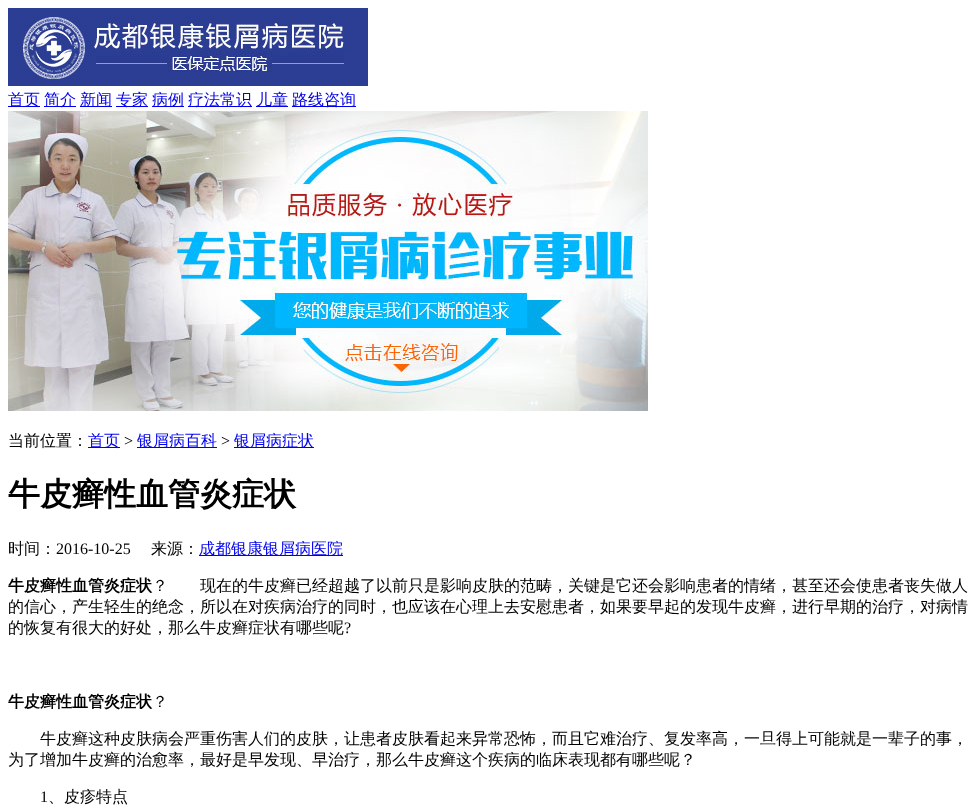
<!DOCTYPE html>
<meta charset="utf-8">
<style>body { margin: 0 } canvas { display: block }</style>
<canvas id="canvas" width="978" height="806"></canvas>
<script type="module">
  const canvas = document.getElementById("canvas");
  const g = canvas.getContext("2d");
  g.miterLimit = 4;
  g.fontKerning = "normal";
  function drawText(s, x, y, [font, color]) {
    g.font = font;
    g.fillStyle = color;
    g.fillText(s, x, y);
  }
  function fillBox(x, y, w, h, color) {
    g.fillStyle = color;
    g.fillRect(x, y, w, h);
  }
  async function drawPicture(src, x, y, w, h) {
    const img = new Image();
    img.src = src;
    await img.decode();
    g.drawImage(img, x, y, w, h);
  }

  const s1 = ["500 16px WenQuanYi Zen Hei", "#0000EE"];
  const s2 = ["500 16px WenQuanYi Zen Hei", "#000000"];
  const s3 = ["16px Liberation Serif", "#000000"];
  const s4 = ["bold 32px WenQuanYi Zen Hei", "#000000"];
  const s5 = ["bold 16px WenQuanYi Zen Hei", "#000000"];

  fillBox(0, 0, 978, 806, "#FFFFFF");
  await drawPicture("pic1.png", 8, 8, 360, 78);
  fillBox(8, 106, 32, 1, "#0000EE");
  drawText("首页", 8, 105, s1);
  fillBox(44, 106, 32, 1, "#0000EE");
  drawText("简介", 44, 105, s1);
  fillBox(80, 106, 32, 1, "#0000EE");
  drawText("新闻", 80, 105, s1);
  fillBox(116, 106, 32, 1, "#0000EE");
  drawText("专家", 116, 105, s1);
  fillBox(152, 106, 32, 1, "#0000EE");
  drawText("病例", 152, 105, s1);
  fillBox(188, 106, 64, 1, "#0000EE");
  drawText("疗法常识", 188, 105, s1);
  fillBox(256, 106, 32, 1, "#0000EE");
  drawText("儿童", 256, 105, s1);
  fillBox(292, 106, 64, 1, "#0000EE");
  drawText("路线咨询", 292, 105, s1);
  await drawPicture("pic2.png", 8, 111, 640, 300);
  drawText("当前位置：", 8, 446, s2);
  fillBox(88, 447, 32, 1, "#0000EE");
  drawText("首页", 88, 446, s1);
  drawText(">", 124, 446, s3);
  fillBox(137, 447, 80, 1, "#0000EE");
  drawText("银屑病百科", 137, 446, s1);
  drawText(">", 221, 446, s3);
  fillBox(234, 447, 80, 1, "#0000EE");
  drawText("银屑病症状", 234, 446, s1);
  drawText("牛皮癣性血管炎症状", 8, 505, s4);
  drawText("时间：", 8, 554, s2);
  drawText("2016-10-25", 56, 554, s3);
  drawText("来源：", 151, 554, s2);
  fillBox(199, 555, 144, 1, "#0000EE");
  drawText("成都银康银屑病医院", 199, 554, s1);
  drawText("牛皮癣性血管炎症状", 8, 591, s5);
  drawText("？　　现在的牛皮癣已经超越了以前只是影响皮肤的范畴，关键是它还会影响患者的情绪，甚至还会使患者丧失做人", 152, 591, s2);
  drawText("的信心，产生轻生的绝念，所以在对疾病治疗的同时，也应该在心理上去安慰患者，如果要早起的发现牛皮癣，进行早期的治疗，对病情", 8, 612, s2);
  drawText("的恢复有很大的好处，那么牛皮癣症状有哪些呢", 8, 633, s2);
  drawText("?", 344, 633, s3);
  drawText("牛皮癣性血管炎症状", 8, 707, s5);
  drawText("？", 152, 707, s2);
  drawText("牛皮癣这种皮肤病会严重伤害人们的皮肤，让患者皮肤看起来异常恐怖，而且它难治疗、复发率高，一旦得上可能就是一辈子的事，", 40, 744, s2);
  drawText("为了增加牛皮癣的治愈率，最好是早发现、早治疗，那么牛皮癣这个疾病的临床表现都有哪些呢？", 8, 765, s2);
  drawText("1", 40, 802, s3);
  drawText("、皮疹特点", 48, 802, s2);
</script>
